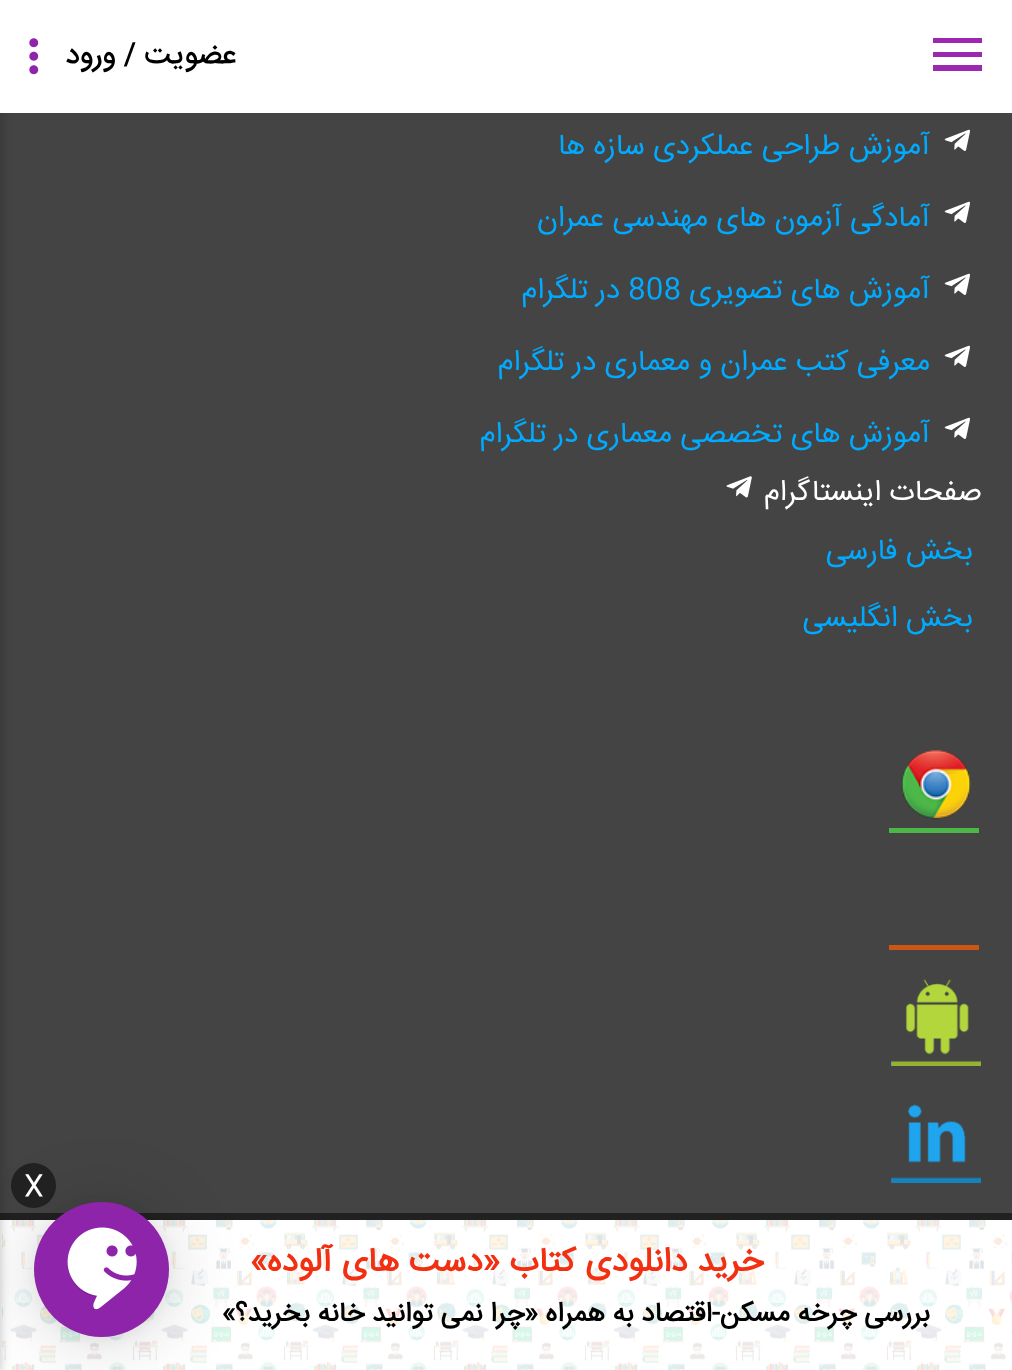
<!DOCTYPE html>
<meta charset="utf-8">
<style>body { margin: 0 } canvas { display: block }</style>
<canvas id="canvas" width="1012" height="1370"></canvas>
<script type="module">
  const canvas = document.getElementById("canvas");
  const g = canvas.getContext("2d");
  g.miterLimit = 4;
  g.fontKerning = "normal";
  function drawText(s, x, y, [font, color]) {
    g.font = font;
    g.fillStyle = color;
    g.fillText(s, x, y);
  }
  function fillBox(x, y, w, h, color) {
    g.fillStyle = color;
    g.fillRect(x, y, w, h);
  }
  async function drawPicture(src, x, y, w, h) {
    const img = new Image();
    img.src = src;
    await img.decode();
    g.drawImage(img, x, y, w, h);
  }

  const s1 = ["500 29.25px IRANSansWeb", "#000000"];
  const s2 = ["29.25px IRANSansWeb", "#00AAFF"];
  const s3 = ["29.25px IRANSansWeb", "#FFFFFF"];
  const s4 = ["29.25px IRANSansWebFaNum", "#FFFFFF"];
  const s5 = ["bold 33.75px IRANSansWebFaNum", "#F32F12"];
  const s6 = ["bold 27px IRANSansWebFaNum", "#000000"];

  fillBox(0, 0, 1012, 1370, "#444444");
  fillBox(68, 0, 944, 113, "#FFFFFF");
  g.fillStyle = "#9C27B0";
  g.beginPath();
  g.moveTo(933, 38);
  g.lineTo(982, 38);
  g.lineTo(982, 43);
  g.lineTo(933, 43);
  g.closePath();
  g.moveTo(933, 52);
  g.lineTo(982, 52);
  g.lineTo(982, 57);
  g.lineTo(933, 57);
  g.closePath();
  g.moveTo(933, 65);
  g.lineTo(982, 65);
  g.lineTo(982, 71);
  g.lineTo(933, 71);
  g.closePath();
  g.fill();
  fillBox(0, 1220, 1012, 150, "#FFFFFF");
  await drawPicture("pic8.png", 2, 1220, 1010, 150);
  fillBox(0, 1213, 1012, 7, "#212121");
  g.fillStyle = "#222222";
  g.beginPath();
  g.arc(33.5, 1185.5, 22.5, 0, Math.PI * 2);
  g.fill();
  g.fillStyle = "rgba(0, 0, 0, 0.12)";
  g.filter = "blur(4.5px)";
  g.beginPath();
  g.rect(-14, 2, 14, 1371);
  g.fill();
  g.filter = "none";
  g.filter = "blur(7px)";
  g.beginPath();
  g.rect(-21, 2, 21, 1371);
  g.fill();
  g.filter = "none";
  fillBox(0, 0, 68, 113, "#FFFFFF");
  g.direction = "rtl";
  drawText("عضویت / ورود", 236, 63, s1);
  await drawPicture("pic1.png", 29, 38, 10, 37);
  await drawPicture("pic2.png", 944, 129, 26, 22);
  drawText("آموزش طراحی عملکردی سازه ها", 930, 154, s2);
  await drawPicture("pic2.png", 944, 201, 26, 22);
  drawText("آمادگی آزمون های مهندسی عمران", 930, 226, s2);
  await drawPicture("pic2.png", 944, 273, 26, 22);
  drawText("آموزش های تصویری", 930, 298, s2);
  g.direction = "ltr";
  drawText("808", 628, 298, s2);
  g.direction = "rtl";
  drawText("در تلگرام", 620, 298, s2);
  await drawPicture("pic2.png", 944, 345, 26, 22);
  drawText("معرفی کتب عمران و معماری در تلگرام", 930, 370, s2);
  await drawPicture("pic2.png", 944, 417, 26, 22);
  drawText("آموزش های تخصصی معماری در تلگرام", 930, 442, s2);
  drawText("صفحات اینستاگرام", 982, 500, s3);
  await drawPicture("pic3.png", 726, 476, 26, 22);
  drawText("بخش فارسی", 973, 559, s2);
  drawText("بخش انگلیسی", 973, 626, s2);
  await drawPicture("pic4.png", 901, 750, 70, 70);
  fillBox(889, 828, 90, 5, "#4CB749");
  fillBox(889, 945, 90, 5, "#CE5613");
  await drawPicture("pic5.png", 891, 979, 90, 87);
  await drawPicture("pic6.png", 891, 1104, 90, 79);
  g.fillStyle = "rgba(0, 0, 0, 0.16)";
  g.filter = "blur(36px)";
  g.beginPath();
  g.roundRect(34, 1206, 135, 135, 67.5);
  g.fill();
  g.filter = "none";
  g.fillStyle = "rgba(0, 0, 0, 0.06)";
  g.filter = "blur(7px)";
  g.beginPath();
  g.roundRect(34, 1204, 135, 135, 67.5);
  g.fill();
  g.filter = "none";
  g.fillStyle = "#8D24AA";
  g.beginPath();
  g.arc(101.5, 1269.5, 67.5, 0, Math.PI * 2);
  g.fill();
  await drawPicture("pic7.png", 67, 1227, 70, 83);
  g.direction = "ltr";
  drawText("X", 24, 1195, s4);
  g.direction = "rtl";
  drawText("خرید دانلودی کتاب «دست های آلوده»", 763, 1271, s5);
  drawText("بررسی چرخه مسکن-اقتصاد به همراه «چرا نمی توانید خانه بخرید؟»", 930, 1321, s6);
</script>
